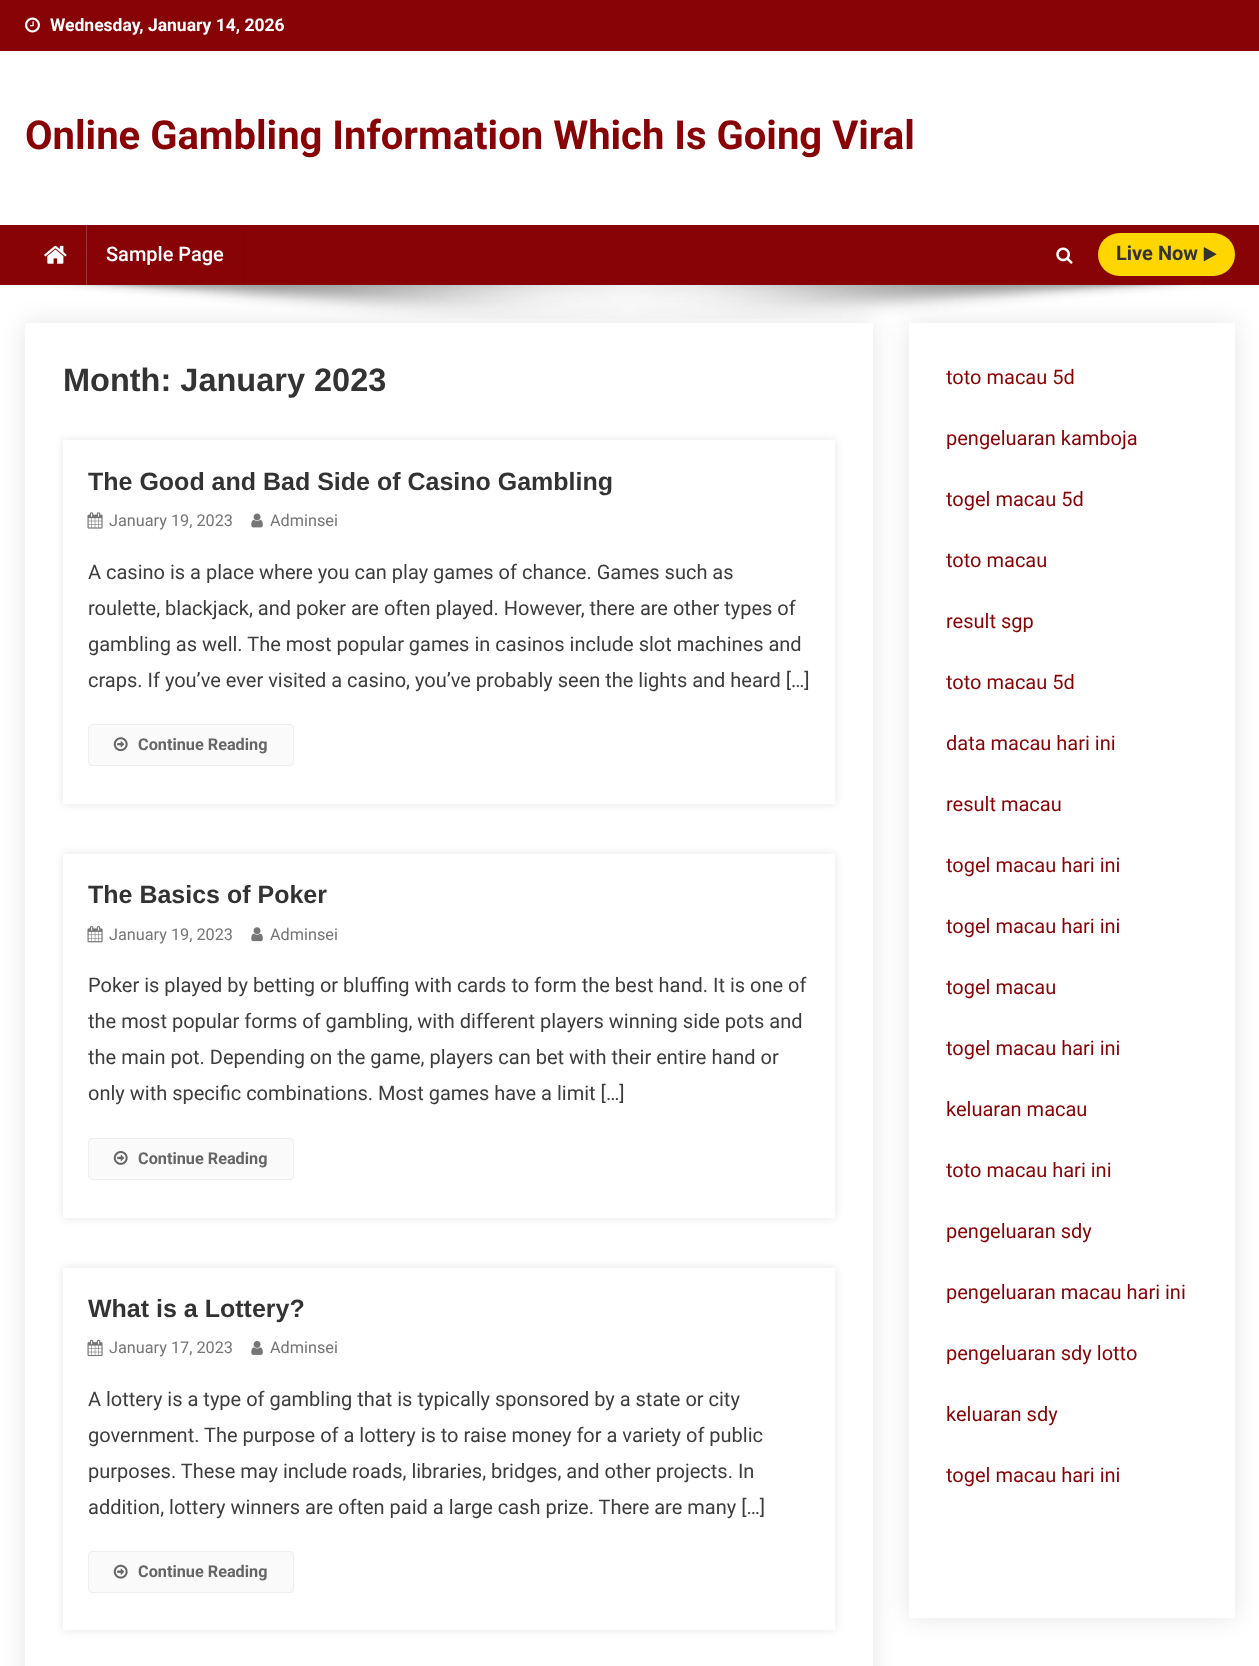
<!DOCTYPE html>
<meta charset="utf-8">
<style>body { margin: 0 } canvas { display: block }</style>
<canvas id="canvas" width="1259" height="1666"></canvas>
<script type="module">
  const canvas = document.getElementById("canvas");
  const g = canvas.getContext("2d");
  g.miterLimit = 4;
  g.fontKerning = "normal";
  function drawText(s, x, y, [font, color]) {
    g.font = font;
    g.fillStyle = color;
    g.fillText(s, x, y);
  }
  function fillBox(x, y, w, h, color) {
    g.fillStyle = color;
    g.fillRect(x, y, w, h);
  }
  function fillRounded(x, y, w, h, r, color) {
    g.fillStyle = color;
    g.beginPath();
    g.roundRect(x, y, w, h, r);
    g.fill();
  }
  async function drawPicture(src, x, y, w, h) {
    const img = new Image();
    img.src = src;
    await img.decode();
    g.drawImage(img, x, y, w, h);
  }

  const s1 = ["bold 17.5px Roboto", "#FFFFFF"];
  const s2 = ["bold 40px Roboto", "#870306"];
  const s3 = ["500 20px Roboto", "#FFFFFF"];
  const s4 = ["bold 20px Roboto", "#333333"];
  const s5 = ["bold 32.5px Liberation Sans", "#333333"];
  const s6 = ["bold 25px Liberation Sans", "#333333"];
  const s7 = ["16.25px Roboto", "#767676"];
  const s8 = ["20px Roboto", "#3D3D3D"];
  const s9 = ["bold 16.25px Roboto", "#666666"];
  const s10 = ["20px Roboto", "#870306"];

  fillBox(0, 0, 1259, 1666, "#FFFFFF");
  fillBox(0, 0, 1259, 51, "#870306");
  await drawPicture("pic1.png", 25, 17, 15, 16);
  drawText("Wednesday, January 14, 2026", 50, 31, s1);
  drawText("Online Gambling Information Which Is Going Viral", 25, 149, s2);
  fillBox(0, 225, 1259, 60, "#870306");
  await drawPicture("pic2.png", 44, 245, 23, 19);
  fillBox(243, 225, 1, 60, "#7C0306");
  fillBox(86, 225, 1, 60, "#9F3538");
  drawText("Sample Page", 106, 261, s3);
  await drawPicture("pic3.png", 1056, 247, 17, 17);
  fillRounded(1098, 233, 137, 43, 21.5, "#FFD600");
  drawText("Live Now", 1116, 260, s4);
  await drawPicture("pic4.png", 1203, 247, 14, 15);
  await drawPicture("pic5.png", 51, 285, 1156, 34);
  g.fillStyle = "rgba(0, 0, 0, 0.1)";
  g.filter = "blur(12.5px)";
  g.beginPath();
  g.rect(25, 323, 848, 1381);
  g.fill();
  g.filter = "none";
  fillBox(25, 323, 848, 1343, "#FFFFFF");
  drawText("Month: January 2023", 63, 391, s5);
  g.save();
  g.beginPath();
  g.moveTo(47, 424);
  g.lineTo(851, 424);
  g.lineTo(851, 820);
  g.lineTo(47, 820);
  g.closePath();
  g.moveTo(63, 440);
  g.lineTo(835, 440);
  g.lineTo(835, 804);
  g.lineTo(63, 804);
  g.closePath();
  g.clip("evenodd");
  g.fillStyle = "rgba(0, 0, 0, 0.1)";
  g.filter = "blur(5px)";
  g.beginPath();
  g.rect(63, 440, 772, 364);
  g.fill();
  g.filter = "none";
  g.restore();
  drawText("The Good and Bad Side of Casino Gambling", 88, 490, s6);
  await drawPicture("pic6.png", 87, 512, 16, 17);
  drawText("January 19, 2023", 109, 526, s7);
  await drawPicture("pic7.png", 251, 513, 12, 15);
  drawText("Adminsei", 270, 526, s7);
  drawText("A casino is a place where you can play games of chance. Games such as", 88, 579, s8);
  drawText("roulette, blackjack, and poker are often played. However, there are other types of", 88, 615, s8);
  drawText("gambling as well. The most popular games in casinos include slot machines and", 88, 651, s8);
  drawText("craps. If you’ve ever visited a casino, you’ve probably seen the lights and heard […]", 88, 687, s8);
  g.fillStyle = "#FAFAFA";
  g.beginPath();
  g.roundRect(88.5, 724.5, 205, 41, 3.5);
  g.fill();
  g.strokeStyle = "#EEEEEE";
  g.stroke();
  await drawPicture("pic8.png", 113, 737, 15, 15);
  drawText("Continue Reading", 138, 750, s9);
  g.save();
  g.beginPath();
  g.moveTo(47, 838);
  g.lineTo(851, 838);
  g.lineTo(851, 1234);
  g.lineTo(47, 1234);
  g.closePath();
  g.moveTo(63, 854);
  g.lineTo(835, 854);
  g.lineTo(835, 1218);
  g.lineTo(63, 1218);
  g.closePath();
  g.clip("evenodd");
  g.fillStyle = "rgba(0, 0, 0, 0.1)";
  g.filter = "blur(5px)";
  g.beginPath();
  g.rect(63, 854, 772, 364);
  g.fill();
  g.filter = "none";
  g.restore();
  drawText("The Basics of Poker", 88, 903, s6);
  await drawPicture("pic9.png", 87, 926, 16, 17);
  drawText("January 19, 2023", 109, 940, s7);
  await drawPicture("pic10.png", 251, 927, 12, 15);
  drawText("Adminsei", 270, 940, s7);
  drawText("Poker is played by betting or bluffing with cards to form the best hand. It is one of", 88, 992, s8);
  drawText("the most popular forms of gambling, with different players winning side pots and", 88, 1028, s8);
  drawText("the main pot. Depending on the game, players can bet with their entire hand or", 88, 1064, s8);
  drawText("only with specific combinations. Most games have a limit […]", 88, 1100, s8);
  g.fillStyle = "#FAFAFA";
  g.beginPath();
  g.roundRect(88.5, 1138.5, 205, 41, 3.5);
  g.fill();
  g.stroke();
  await drawPicture("pic11.png", 113, 1151, 15, 14);
  drawText("Continue Reading", 138, 1164, s9);
  g.save();
  g.beginPath();
  g.moveTo(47, 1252);
  g.lineTo(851, 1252);
  g.lineTo(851, 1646);
  g.lineTo(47, 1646);
  g.closePath();
  g.moveTo(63, 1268);
  g.lineTo(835, 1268);
  g.lineTo(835, 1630);
  g.lineTo(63, 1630);
  g.closePath();
  g.clip("evenodd");
  g.fillStyle = "rgba(0, 0, 0, 0.1)";
  g.filter = "blur(5px)";
  g.beginPath();
  g.rect(63, 1268, 772, 362);
  g.fill();
  g.filter = "none";
  g.restore();
  drawText("What is a Lottery?", 88, 1317, s6);
  await drawPicture("pic12.png", 87, 1339, 16, 18);
  drawText("January 17, 2023", 109, 1353, s7);
  await drawPicture("pic13.png", 251, 1341, 12, 14);
  drawText("Adminsei", 270, 1353, s7);
  drawText("A lottery is a type of gambling that is typically sponsored by a state or city", 88, 1406, s8);
  drawText("government. The purpose of a lottery is to raise money for a variety of public", 88, 1442, s8);
  drawText("purposes. These may include roads, libraries, bridges, and other projects. In", 88, 1478, s8);
  drawText("addition, lottery winners are often paid a large cash prize. There are many […]", 88, 1514, s8);
  g.fillStyle = "#FAFAFA";
  g.beginPath();
  g.roundRect(88.5, 1551.5, 205, 41, 3.5);
  g.fill();
  g.stroke();
  await drawPicture("pic14.png", 113, 1564, 15, 15);
  drawText("Continue Reading", 138, 1577, s9);
  g.fillStyle = "rgba(0, 0, 0, 0.1)";
  g.filter = "blur(12.5px)";
  g.beginPath();
  g.rect(909, 323, 326, 1295);
  g.fill();
  g.filter = "none";
  fillBox(909, 323, 326, 1295, "#FFFFFF");
  drawText("toto macau 5d", 946, 384, s10);
  drawText("pengeluaran kamboja", 946, 445, s10);
  drawText("togel macau 5d", 946, 506, s10);
  drawText("toto macau", 946, 567, s10);
  drawText("result sgp", 946, 628, s10);
  drawText("toto macau 5d", 946, 689, s10);
  drawText("data macau hari ini", 946, 750, s10);
  drawText("result macau", 946, 811, s10);
  drawText("togel macau hari ini", 946, 872, s10);
  drawText("togel macau hari ini", 946, 933, s10);
  drawText("togel macau", 946, 994, s10);
  drawText("togel macau hari ini", 946, 1055, s10);
  drawText("keluaran macau", 946, 1116, s10);
  drawText("toto macau hari ini", 946, 1177, s10);
  drawText("pengeluaran sdy", 946, 1238, s10);
  drawText("pengeluaran macau hari ini", 946, 1299, s10);
  drawText("pengeluaran sdy lotto", 946, 1360, s10);
  drawText("keluaran sdy", 946, 1421, s10);
  drawText("togel macau hari ini", 946, 1482, s10);
</script>
